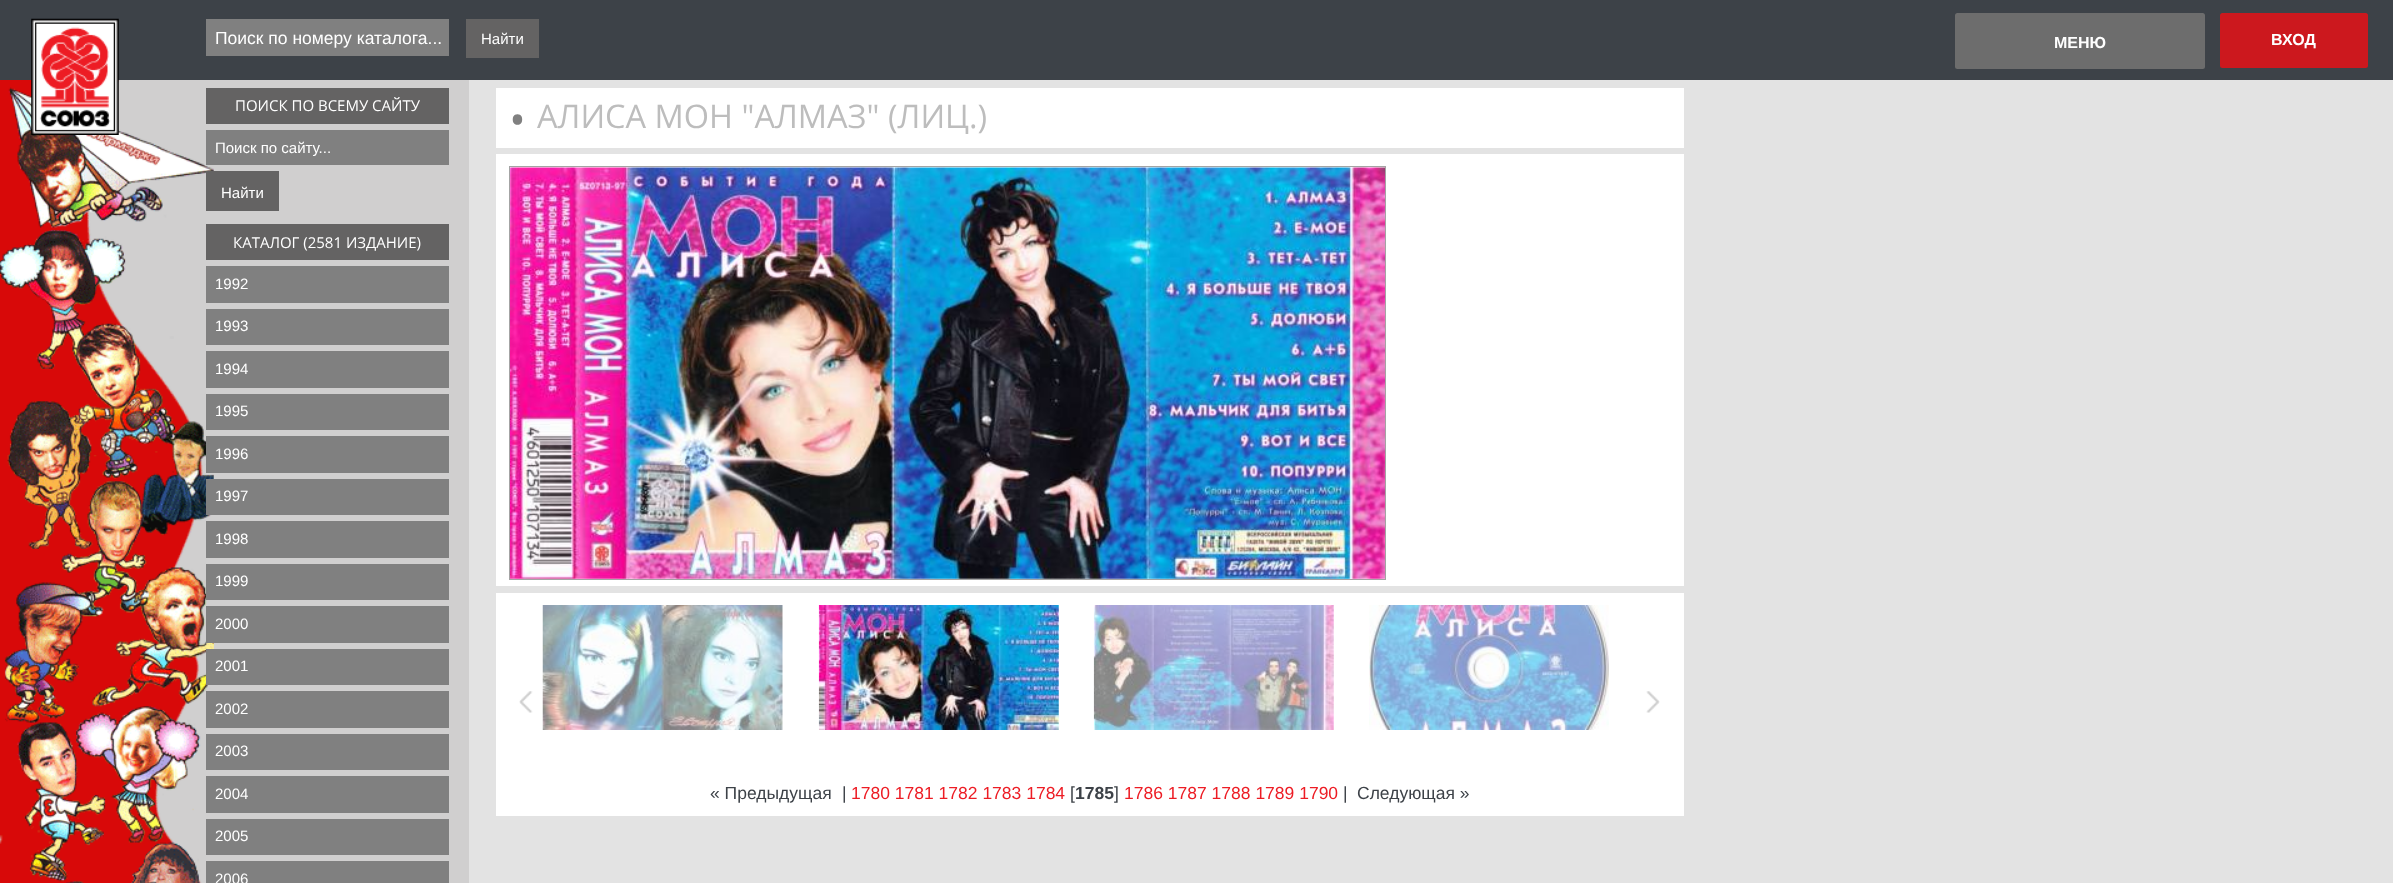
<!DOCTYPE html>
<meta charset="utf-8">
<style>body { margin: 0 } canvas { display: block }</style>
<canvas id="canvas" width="2393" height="883"></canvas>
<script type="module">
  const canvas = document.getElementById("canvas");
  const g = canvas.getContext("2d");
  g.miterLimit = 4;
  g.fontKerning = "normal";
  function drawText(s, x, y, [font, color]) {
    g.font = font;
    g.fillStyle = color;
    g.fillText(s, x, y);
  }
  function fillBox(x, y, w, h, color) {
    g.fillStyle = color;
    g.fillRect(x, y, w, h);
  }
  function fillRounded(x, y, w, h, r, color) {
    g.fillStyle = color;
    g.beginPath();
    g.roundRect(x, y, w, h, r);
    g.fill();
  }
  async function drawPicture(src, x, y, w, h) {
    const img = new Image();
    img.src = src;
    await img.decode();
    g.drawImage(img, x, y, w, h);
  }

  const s1 = ["17.5px Liberation Sans", "#FFFFFF"];
  const s2 = ["15px Liberation Sans", "#FFFFFF"];
  const s3 = ["bold 16px Liberation Sans", "#FFFFFF"];
  const s4 = ["15px Open Sans", "#FFFFFF"];
  const s5 = ["45px Open Sans", "#808080"];
  const s6 = ["32.5px Open Sans", "#BDBDBD"];
  const s7 = ["17.5px Liberation Sans", "#3D4248"];
  const s8 = ["17.5px Liberation Sans", "#ED1C24"];
  const s9 = ["bold 17.5px Liberation Sans", "#3D4248"];

  fillBox(0, 0, 2393, 883, "#E3E3E3");
  fillBox(0, 0, 2393, 80, "#3D4248");
  fillBox(213, 80, 256, 803, "#D0CFCF");
  await drawPicture("pic2.png", 0, 80, 214, 803);
  await drawPicture("pic1.png", 31, 18, 88, 117);
  fillBox(206, 19, 243, 37, "#808080");
  drawText("Поиск по номеру каталога...", 215, 44, s1);
  fillBox(466, 19, 73, 39, "#646363");
  drawText("Найти", 481, 44, s2);
  fillRounded(1955, 13, 250, 56, 2.5, "#6D6D6D");
  drawText("МЕНЮ", 2054, 48, s3);
  fillRounded(2220, 13, 148, 55, 2.5, "#CC181E");
  drawText("ВХОД", 2271, 45, s3);
  fillBox(206, 88, 243, 36, "#646363");
  drawText("ПОИСК ПО ВСЕМУ САЙТУ", 235, 111, s4);
  fillBox(206, 130, 243, 35, "#808080");
  drawText("Поиск по сайту...", 215, 153, s2);
  fillBox(206, 171, 73, 40, "#646363");
  drawText("Найти", 221, 198, s2);
  fillBox(206, 224, 243, 36, "#646363");
  drawText("КАТАЛОГ (2581 ИЗДАНИЕ)", 233, 248, s4);
  fillBox(206, 266, 243, 37, "#808080");
  drawText("1992", 215, 289, s2);
  fillBox(206, 309, 243, 36, "#808080");
  drawText("1993", 215, 331, s2);
  fillBox(206, 351, 243, 37, "#808080");
  drawText("1994", 215, 374, s2);
  fillBox(206, 394, 243, 36, "#808080");
  drawText("1995", 215, 416, s2);
  fillBox(206, 436, 243, 37, "#808080");
  drawText("1996", 215, 459, s2);
  fillBox(206, 479, 243, 36, "#808080");
  drawText("1997", 215, 501, s2);
  fillBox(206, 521, 243, 37, "#808080");
  drawText("1998", 215, 544, s2);
  fillBox(206, 564, 243, 36, "#808080");
  drawText("1999", 215, 586, s2);
  fillBox(206, 606, 243, 37, "#808080");
  drawText("2000", 215, 629, s2);
  fillBox(206, 649, 243, 36, "#808080");
  drawText("2001", 215, 671, s2);
  fillBox(206, 691, 243, 37, "#808080");
  drawText("2002", 215, 714, s2);
  fillBox(206, 734, 243, 36, "#808080");
  drawText("2003", 215, 756, s2);
  fillBox(206, 776, 243, 37, "#808080");
  drawText("2004", 215, 799, s2);
  fillBox(206, 819, 243, 36, "#808080");
  drawText("2005", 215, 841, s2);
  fillBox(206, 861, 243, 22, "#808080");
  drawText("2006", 215, 884, s2);
  fillBox(496, 88, 1188, 60, "#FFFFFF");
  drawText("•", 509, 136, s5);
  drawText("АЛИСА МОН \"АЛМАЗ\" (ЛИЦ.)", 537, 128, s6);
  fillBox(496, 154, 1188, 432, "#FFFFFF");
  g.strokeStyle = "#A4A4A4";
  g.strokeRect(509.5, 166.5, 876, 413);
  await drawPicture("pic3.png", 510, 167, 875, 412);
  fillBox(496, 593, 1188, 223, "#FFFFFF");
  await drawPicture("pic4.png", 519, 691, 14, 22);
  await drawPicture("pic5.png", 542, 605, 241, 125);
  await drawPicture("pic6.png", 818, 605, 241, 125);
  await drawPicture("pic7.png", 1093, 605, 241, 125);
  await drawPicture("pic8.png", 1369, 605, 240, 125);
  await drawPicture("pic9.png", 1646, 691, 14, 22);
  drawText("« Предыдущая", 710, 799, s7);
  drawText("|", 842, 799, s7);
  drawText("1780 1781 1782 1783 1784", 851, 799, s8);
  drawText("[", 1070, 799, s7);
  drawText("1785", 1075, 799, s9);
  drawText("]", 1114, 799, s7);
  drawText("1786 1787 1788 1789 1790", 1124, 799, s8);
  drawText("|", 1343, 799, s7);
  drawText("Следующая »", 1357, 799, s7);
</script>
